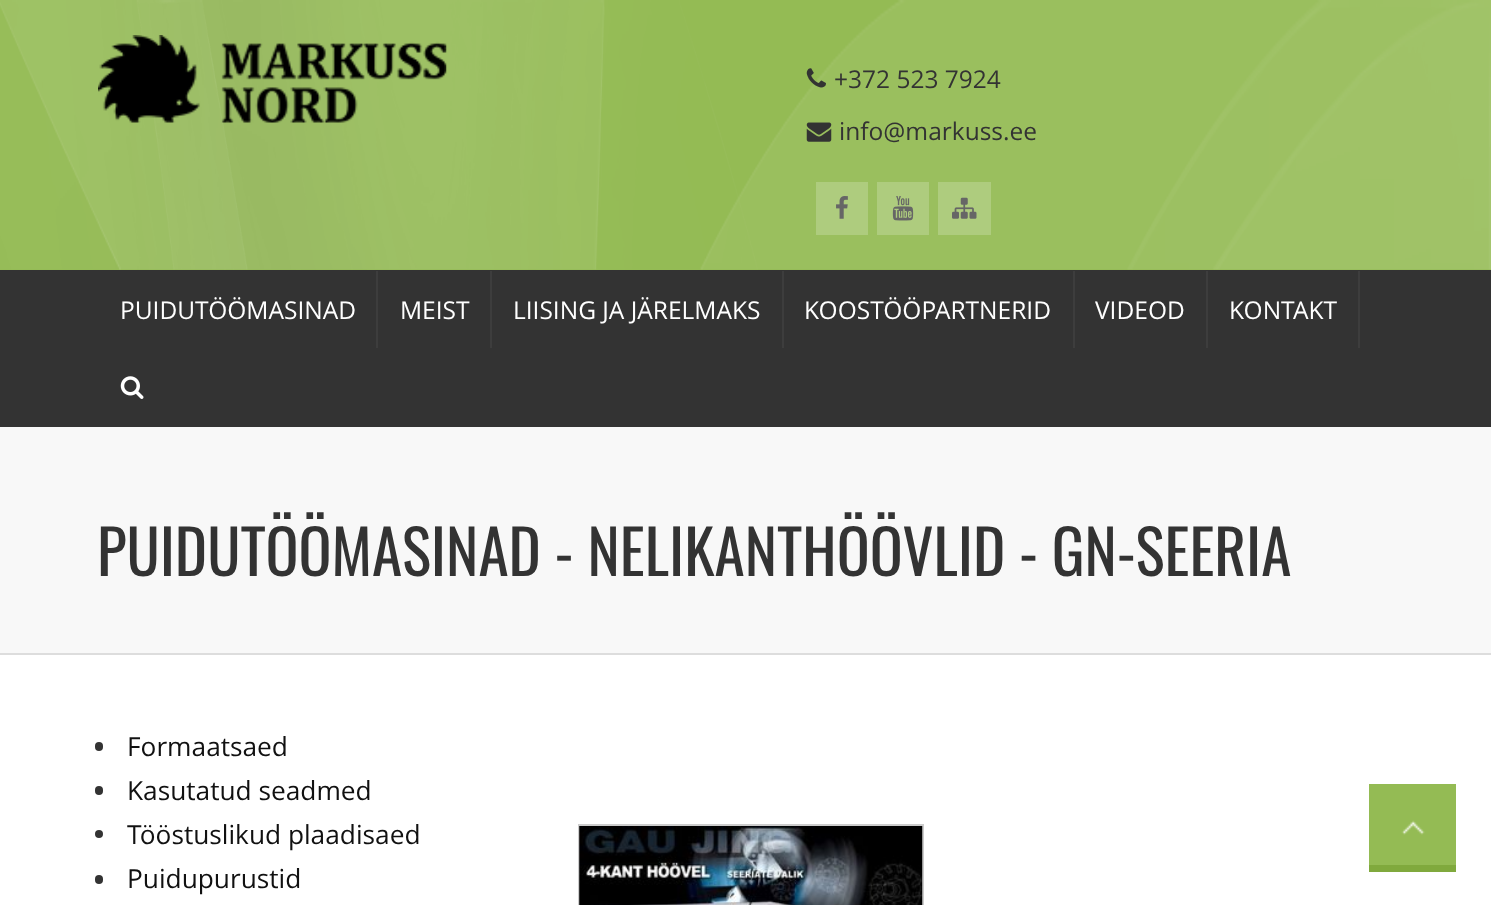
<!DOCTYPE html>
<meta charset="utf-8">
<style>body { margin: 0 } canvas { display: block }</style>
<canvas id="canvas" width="1491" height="905"></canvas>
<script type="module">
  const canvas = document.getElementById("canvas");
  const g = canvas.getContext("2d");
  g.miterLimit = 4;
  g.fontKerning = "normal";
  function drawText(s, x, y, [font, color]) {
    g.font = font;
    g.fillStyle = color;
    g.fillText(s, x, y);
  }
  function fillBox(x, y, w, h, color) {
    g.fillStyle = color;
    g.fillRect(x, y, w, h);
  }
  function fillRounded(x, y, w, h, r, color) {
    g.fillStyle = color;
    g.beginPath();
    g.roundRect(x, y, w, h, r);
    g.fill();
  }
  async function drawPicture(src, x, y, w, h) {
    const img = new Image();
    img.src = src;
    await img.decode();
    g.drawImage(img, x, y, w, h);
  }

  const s1 = ["24.5px Open Sans", "#333333"];
  const s2 = ["24.5px Open Sans", "#FFFFFF"];
  const s3 = ["61.25px Oswald", "#333333"];
  const s4 = ["26.25px Open Sans", "#111111"];

  fillBox(0, 0, 1491, 905, "#FFFFFF");
  fillBox(0, 0, 1491, 270, "#94BB54");
  await drawPicture("pic1.png", 0, 0, 1491, 270);
  await drawPicture("pic2.png", 98, 35, 349, 88);
  await drawPicture("pic3.png", 806, 68, 20, 20);
  drawText("+372 523 7924", 834, 88, s1);
  await drawPicture("pic4.png", 806, 122, 26, 20);
  drawText("info@markuss.ee", 839, 140, s1);
  fillBox(816, 182, 52, 53, "#AECC7E");
  await drawPicture("pic5.png", 836, 196, 12, 23);
  fillBox(877, 182, 52, 53, "#AECC7E");
  await drawPicture("pic6.png", 892, 196, 22, 25);
  fillBox(938, 182, 53, 53, "#AECC7E");
  await drawPicture("pic7.png", 952, 197, 25, 22);
  fillBox(0, 270, 1491, 157, "#333333");
  fillBox(376, 271, 2, 77, "#3D3D3D");
  drawText("PUIDUTÖÖMASINAD", 120, 319, s2);
  fillBox(490, 271, 2, 77, "#3D3D3D");
  drawText("MEIST", 400, 319, s2);
  fillBox(782, 271, 2, 77, "#3D3D3D");
  drawText("LIISING JA JÄRELMAKS", 513, 319, s2);
  fillBox(1073, 271, 2, 77, "#3D3D3D");
  drawText("KOOSTÖÖPARTNERID", 804, 319, s2);
  fillBox(1206, 271, 2, 77, "#3D3D3D");
  drawText("VIDEOD", 1095, 319, s2);
  fillBox(1358, 271, 2, 77, "#3D3D3D");
  drawText("KONTAKT", 1229, 319, s2);
  await drawPicture("pic8.png", 120, 376, 24, 23);
  fillBox(0, 427, 1491, 226, "#F8F8F8");
  fillBox(0, 653, 1491, 2, "#DDDDDD");
  drawText("PUIDUTÖÖMASINAD - NELIKANTHÖÖVLID - GN-SEERIA", 97, 576, s3);
  fillRounded(95, 742, 8, 9, 4, "#333333");
  drawText("Formaatsaed", 127, 756, s4);
  fillRounded(95, 786, 8, 9, 4, "#333333");
  drawText("Kasutatud seadmed", 127, 800, s4);
  g.fillStyle = "#333333";
  g.beginPath();
  g.arc(99, 834, 4, 0, Math.PI * 2);
  g.fill();
  drawText("Tööstuslikud plaadisaed", 127, 844, s4);
  fillRounded(95, 875, 8, 9, 4, "#333333");
  drawText("Puidupurustid", 127, 888, s4);
  g.strokeStyle = "#CCCCCC";
  g.lineWidth = 2;
  g.strokeRect(579, 825, 344, 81);
  await drawPicture("pic9.png", 579, 826, 344, 79);
  fillBox(1369, 784, 87, 81, "#94BB54");
  fillBox(1369, 865, 87, 7, "#80A93D");
  await drawPicture("pic10.png", 1401, 820, 24, 15);
</script>
